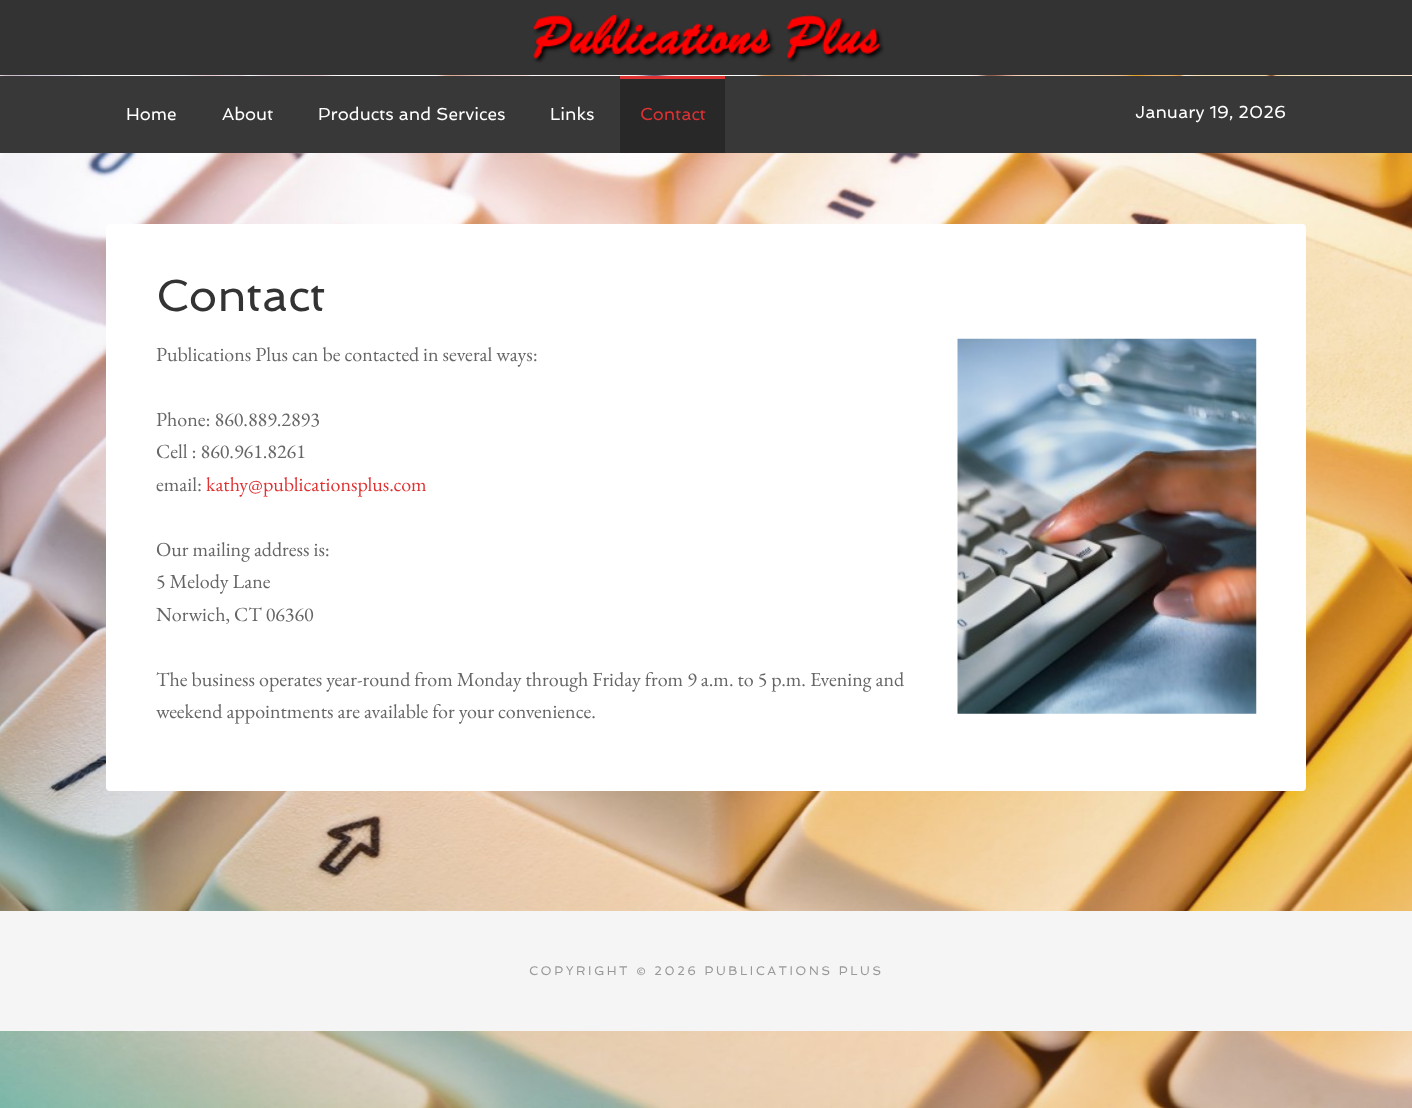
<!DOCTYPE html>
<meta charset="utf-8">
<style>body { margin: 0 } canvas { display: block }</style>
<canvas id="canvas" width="1412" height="1108"></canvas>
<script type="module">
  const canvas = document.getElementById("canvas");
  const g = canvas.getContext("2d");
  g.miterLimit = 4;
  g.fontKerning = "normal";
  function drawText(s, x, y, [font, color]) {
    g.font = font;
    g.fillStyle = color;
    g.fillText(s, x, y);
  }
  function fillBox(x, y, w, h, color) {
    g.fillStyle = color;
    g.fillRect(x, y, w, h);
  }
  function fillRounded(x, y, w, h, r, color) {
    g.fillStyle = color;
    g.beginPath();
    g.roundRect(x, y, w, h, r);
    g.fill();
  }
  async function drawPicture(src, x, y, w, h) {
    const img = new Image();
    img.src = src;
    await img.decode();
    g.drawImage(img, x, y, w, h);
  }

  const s1 = ["17.5px Spinnaker", "#FFFFFF"];
  const s2 = ["17.5px Spinnaker", "#DE3233"];
  const s3 = ["45px Spinnaker", "#333333"];
  const s4 = ["20px EB Garamond", "#666666"];
  const s5 = ["20px EB Garamond", "#DE3233"];
  const s6 = ["12.5px Spinnaker", "#999999"];

  fillBox(0, 0, 1412, 1108, "#FFFFFF");
  fillBox(0, 0, 1412, 75, "#333333");
  await drawPicture("pic1.png", 533, 14, 351, 49);
  await drawPicture("pic2.png", 0, 75, 1412, 1033);
  fillBox(0, 76, 1412, 77, "#383838");
  drawText("Home", 126, 120, s1);
  drawText("About", 222, 120, s1);
  drawText("Products and Services", 318, 120, s1);
  drawText("Links", 550, 120, s1);
  fillBox(620, 79, 105, 74, "#282828");
  fillBox(620, 76, 105, 3, "#DE3233");
  drawText("Contact", 640, 120, s2);
  drawText("January 19, 2026", 1135, 118, s1);
  fillRounded(106, 224, 1200, 567, 4, "#FFFFFF");
  drawText("Contact", 156, 311, s3);
  drawText("Publications Plus can be contacted in several ways:", 156, 361, s4);
  await drawPicture("pic3.png", 957, 338, 300, 376);
  drawText("Phone: 860.889.2893", 156, 426, s4);
  drawText("Cell : 860.961.8261", 156, 458, s4);
  drawText("email:", 156, 491, s4);
  drawText("kathy@publicationsplus.com", 206, 491, s5);
  drawText("Our mailing address is:", 156, 556, s4);
  drawText("5 Melody Lane", 156, 588, s4);
  drawText("Norwich, CT 06360", 156, 621, s4);
  drawText("The business operates year-round from Monday through Friday from 9 a.m. to 5 p.m. Evening and", 156, 686, s4);
  drawText("weekend appointments are available for your convenience.", 156, 718, s4);
  fillBox(0, 911, 1412, 120, "#F5F5F5");
  g.letterSpacing = "2.5px";
  drawText("COPYRIGHT © 2026 PUBLICATIONS PLUS", 529, 975, s6);
</script>
